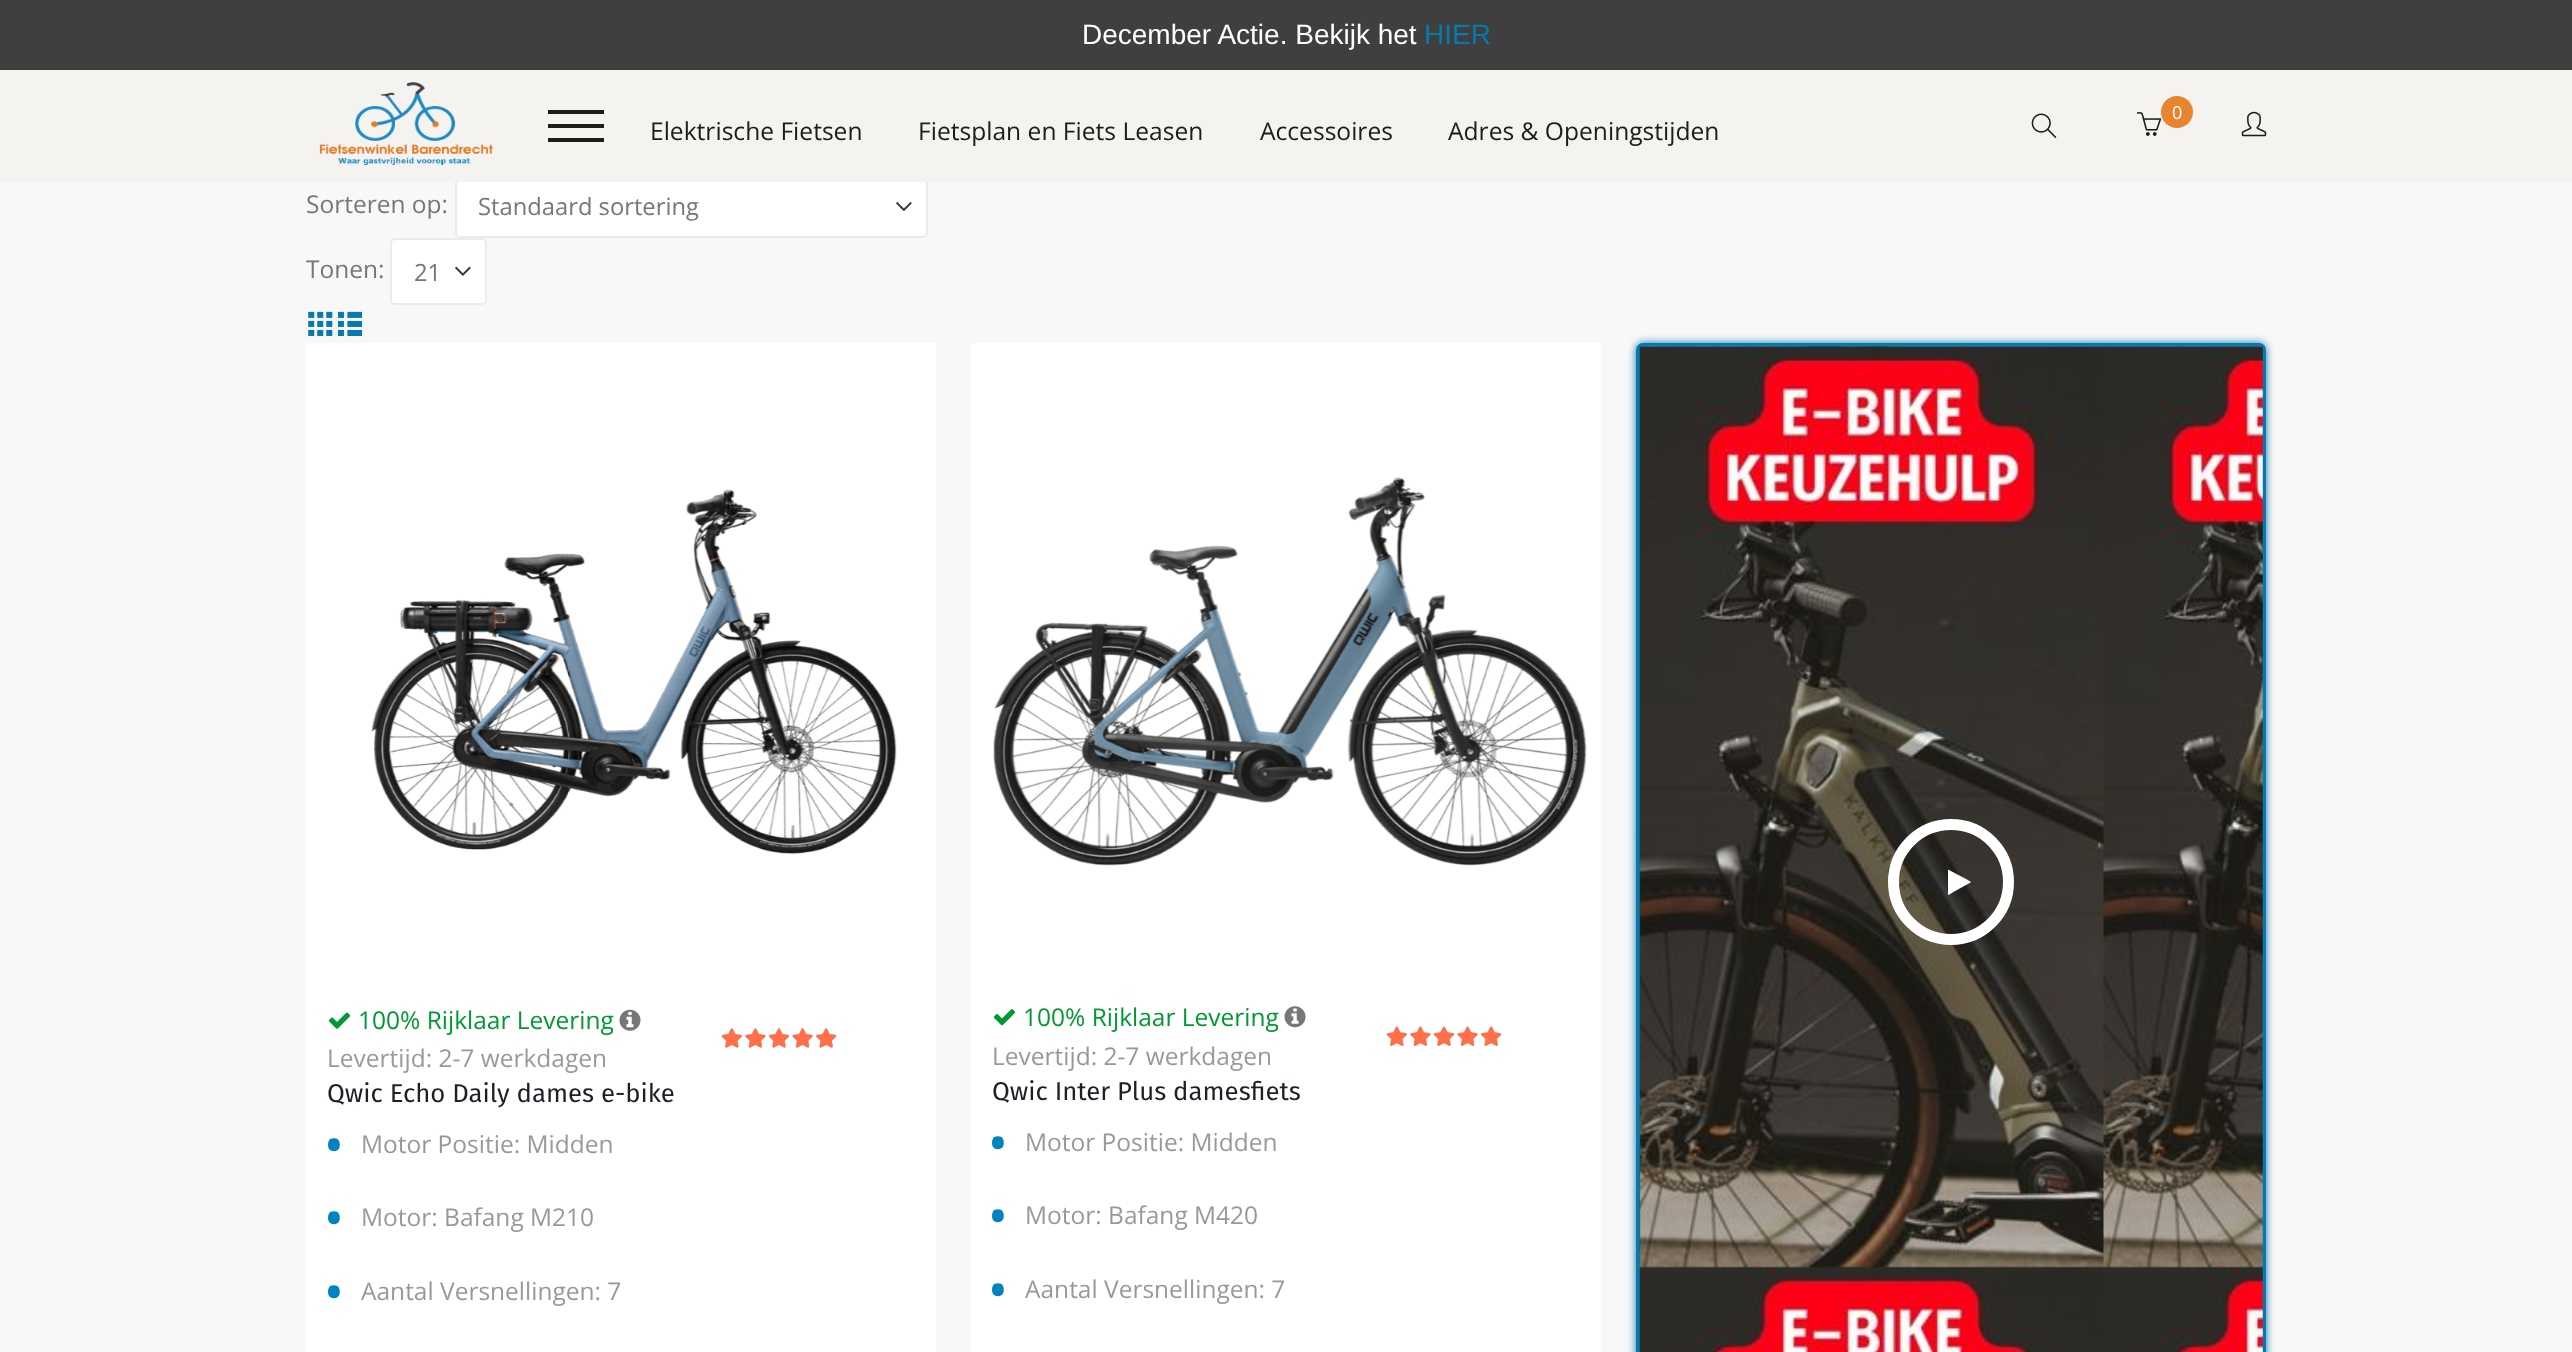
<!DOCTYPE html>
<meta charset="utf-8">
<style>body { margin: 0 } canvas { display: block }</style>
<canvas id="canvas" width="2572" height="1352"></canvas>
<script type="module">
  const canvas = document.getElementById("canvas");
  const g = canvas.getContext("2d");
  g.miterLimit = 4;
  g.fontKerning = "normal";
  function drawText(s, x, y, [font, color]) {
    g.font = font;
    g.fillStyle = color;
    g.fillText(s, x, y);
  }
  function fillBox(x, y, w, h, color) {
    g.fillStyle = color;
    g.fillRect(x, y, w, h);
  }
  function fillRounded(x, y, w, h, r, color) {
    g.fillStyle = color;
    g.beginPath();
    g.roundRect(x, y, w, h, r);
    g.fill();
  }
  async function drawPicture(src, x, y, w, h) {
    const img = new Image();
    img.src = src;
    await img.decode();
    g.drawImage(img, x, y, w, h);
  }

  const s1 = ["28px Liberation Sans", "#FFFFFF"];
  const s2 = ["28px Liberation Sans", "#0679AF"];
  const s3 = ["18px Open Sans", "#FFFFFF"];
  const s4 = ["24.6px Open Sans", "#1C1C1C"];
  const s5 = ["24.5px Open Sans", "#777777"];
  const s6 = ["23.75px Open Sans", "#777777"];
  const s7 = ["24.5px Open Sans", "#009933"];
  const s8 = ["24.5px Open Sans", "#999999"];
  const s9 = ["25.75px Fira Sans", "#1D2127"];
  const s10 = ["bold 42px Open Sans", "#0083C1"];

  fillBox(0, 0, 2572, 1352, "#F8F8F8");
  fillBox(0, 0, 2572, 70, "#3F3F3F");
  drawText("December Actie. Bekijk het", 1082, 44, s1);
  drawText("HIER", 1424, 44, s2);
  fillRounded(455, 173, 473, 65, 5, "#FFFFFF");
  await drawPicture("pic5.png", 896, 201, 16, 11);
  g.beginPath();
  g.roundRect(456, 174, 471, 63, 4);
  g.strokeStyle = "rgba(0, 0, 0, 0.08)";
  g.lineWidth = 2;
  g.stroke();
  fillBox(0, 70, 2572, 112, "#F5F3F0");
  await drawPicture("pic1.png", 2031, 113, 26, 25);
  await drawPicture("pic2.png", 2136, 112, 26, 24);
  g.fillStyle = "#E7842D";
  g.beginPath();
  g.arc(2177, 112, 16, 0, Math.PI * 2);
  g.fill();
  drawText("0", 2172, 119, s3);
  await drawPicture("pic3.png", 2241, 111, 26, 26);
  await drawPicture("pic4.png", 319, 82, 175, 83);
  fillBox(548, 110, 56, 4, "#1C1C1C");
  fillBox(548, 124, 56, 4, "#1C1C1C");
  fillBox(548, 138, 56, 4, "#1C1C1C");
  drawText("Elektrische Fietsen", 650, 140, s4);
  drawText("Fietsplan en Fiets Leasen", 918, 140, s4);
  drawText("Accessoires", 1260, 140, s4);
  drawText("Adres & Openingstijden", 1448, 140, s4);
  drawText("Sorteren op:", 306, 213, s5);
  drawText("Standaard sortering", 478, 215, s6);
  drawText("Tonen:", 306, 278, s5);
  fillRounded(390, 238, 97, 67, 5, "#FFFFFF");
  await drawPicture("pic6.png", 455, 266, 16, 10);
  g.beginPath();
  g.roundRect(391, 239, 95, 65, 4);
  g.stroke();
  drawText("21", 414, 281, s6);
  await drawPicture("pic7.png", 308, 311, 25, 25);
  await drawPicture("pic8.png", 337, 311, 26, 25);
  fillBox(306, 343, 630, 1009, "#FFFFFF");
  await drawPicture("pic9.png", 371, 489, 526, 365);
  await drawPicture("pic10.png", 328, 1012, 23, 17);
  drawText("100% Rijklaar Levering", 358, 1029, s7);
  await drawPicture("pic11.png", 619, 1009, 22, 22);
  drawText("Levertijd: 2-7 werkdagen", 327, 1067, s8);
  await drawPicture("pic13.png", 722, 1028, 114, 20);
  await drawPicture("pic12.png", 721, 1028, 116, 20);
  drawText("Qwic Echo Daily dames e-bike", 327, 1102, s9);
  drawText("•", 326, 1160, s10);
  drawText("Motor Positie: Midden", 361, 1153, s8);
  drawText("•", 326, 1233, s10);
  drawText("Motor: Bafang M210", 361, 1226, s8);
  drawText("•", 326, 1307, s10);
  drawText("Aantal Versnellingen: 7", 361, 1300, s8);
  fillBox(971, 343, 630, 1009, "#FFFFFF");
  await drawPicture("pic14.png", 993, 477, 594, 389);
  await drawPicture("pic15.png", 993, 1009, 23, 17);
  drawText("100% Rijklaar Levering", 1023, 1026, s7);
  await drawPicture("pic16.png", 1284, 1006, 22, 22);
  drawText("Levertijd: 2-7 werkdagen", 992, 1065, s8);
  await drawPicture("pic17.png", 1386, 1026, 116, 20);
  await drawPicture("pic18.png", 1386, 1026, 116, 20);
  drawText("Qwic Inter Plus damesfiets", 992, 1100, s9);
  drawText("•", 990, 1158, s10);
  drawText("Motor Positie: Midden", 1025, 1151, s8);
  drawText("•", 990, 1231, s10);
  drawText("Motor: Bafang M420", 1025, 1224, s8);
  drawText("•", 990, 1305, s10);
  drawText("Aantal Versnellingen: 7", 1025, 1298, s8);
  g.fillStyle = "#0679AF";
  g.filter = "blur(4.5px)";
  g.beginPath();
  g.roundRect(1636, 343, 630, 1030, 7);
  g.fill();
  g.filter = "none";
  g.beginPath();
  g.roundRect(1638, 345, 626, 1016, 5);
  g.strokeStyle = "#0679AF";
  g.lineWidth = 4;
  g.stroke();
  await drawPicture("pic19.png", 1639, 346, 624, 1006);
  g.beginPath();
  g.arc(1951, 882, 57.5, 0, Math.PI * 2);
  g.strokeStyle = "#FFFFFF";
  g.lineWidth = 11;
  g.stroke();
  g.fillStyle = "#FFFFFF";
  g.beginPath();
  g.moveTo(1970.5, 882.5);
  g.lineTo(1952.5, 892.5);
  g.bezierCurveTo(1952, 893, 1948.5, 895.5, 1948, 894.5);
  g.lineTo(1948, 869.5);
  g.lineTo(1967, 879.5);
  g.lineTo(1971, 882);
  g.closePath();
  g.fill();
</script>
